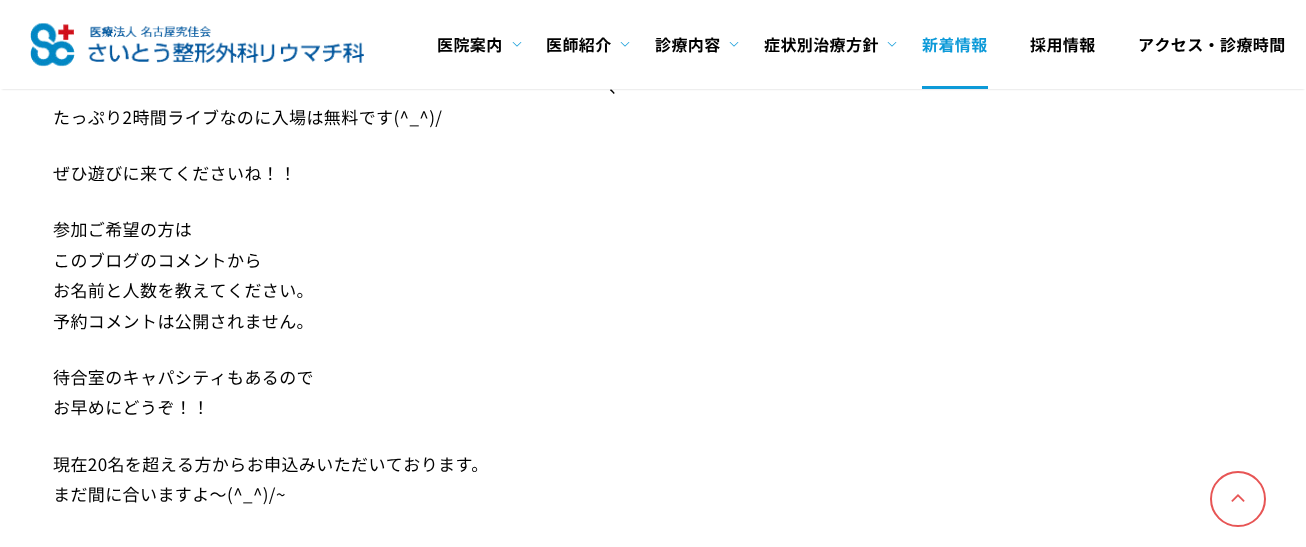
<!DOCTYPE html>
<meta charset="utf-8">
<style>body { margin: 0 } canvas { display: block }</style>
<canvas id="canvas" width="1306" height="547"></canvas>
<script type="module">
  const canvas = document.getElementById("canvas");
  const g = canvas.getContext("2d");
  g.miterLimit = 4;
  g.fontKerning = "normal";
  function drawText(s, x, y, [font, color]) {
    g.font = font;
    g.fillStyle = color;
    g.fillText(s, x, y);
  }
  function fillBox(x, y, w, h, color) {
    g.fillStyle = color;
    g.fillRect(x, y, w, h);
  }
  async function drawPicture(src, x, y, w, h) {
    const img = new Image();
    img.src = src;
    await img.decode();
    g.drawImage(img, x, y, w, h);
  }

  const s1 = ["bold 16px Noto Sans JP", "#000000"];
  const s2 = ["bold 16px Noto Sans JP", "#0D9AD8"];
  const s3 = ["17px Noto Sans JP", "#000000"];

  fillBox(0, 0, 1306, 547, "#FFFFFF");
  g.fillStyle = "rgba(0, 0, 0, 0.2)";
  g.filter = "blur(1px)";
  g.beginPath();
  g.rect(2, 4, 1302, 85);
  g.fill();
  g.filter = "none";
  fillBox(0, 2, 1306, 87, "#FFFFFF");
  await drawPicture("pic1.png", 30, 23, 334, 44);
  g.letterSpacing = "0.4px";
  drawText("医院案内", 437, 51, s1);
  await drawPicture("pic2.png", 512, 42, 10, 5);
  drawText("医師紹介", 546, 51, s1);
  await drawPicture("pic2.png", 620, 42, 10, 5);
  drawText("診療内容", 655, 51, s1);
  await drawPicture("pic2.png", 729, 42, 10, 5);
  drawText("症状別治療方針", 764, 51, s1);
  await drawPicture("pic2.png", 887, 42, 10, 5);
  drawText("新着情報", 922, 51, s2);
  fillBox(922, 86, 66, 3, "#0D9AD8");
  drawText("採用情報", 1030, 51, s1);
  drawText("アクセス・診療時間", 1138, 51, s1);
  drawText("、", 609, 93, s3);
  drawText("たっぷり2時間ライブなのに入場は無料です(^_^)/", 53, 124, s3);
  drawText("ぜひ遊びに来てくださいね！！", 53, 180, s3);
  drawText("参加ご希望の方は", 53, 236, s3);
  drawText("このブログのコメントから", 53, 267, s3);
  drawText("お名前と人数を教えてください。", 53, 297, s3);
  drawText("予約コメントは公開されません。", 53, 328, s3);
  drawText("待合室のキャパシティもあるので", 53, 384, s3);
  drawText("お早めにどうぞ！！", 53, 414, s3);
  drawText("現在20名を超える方からお申込みいただいております。", 53, 471, s3);
  drawText("まだ間に合いますよ～(^_^)/~", 53, 501, s3);
  g.beginPath();
  g.arc(1238, 499, 27, 0, Math.PI * 2);
  g.strokeStyle = "#E75555";
  g.lineWidth = 2;
  g.stroke();
  await drawPicture("pic3.png", 1231, 494, 14, 8);
</script>
